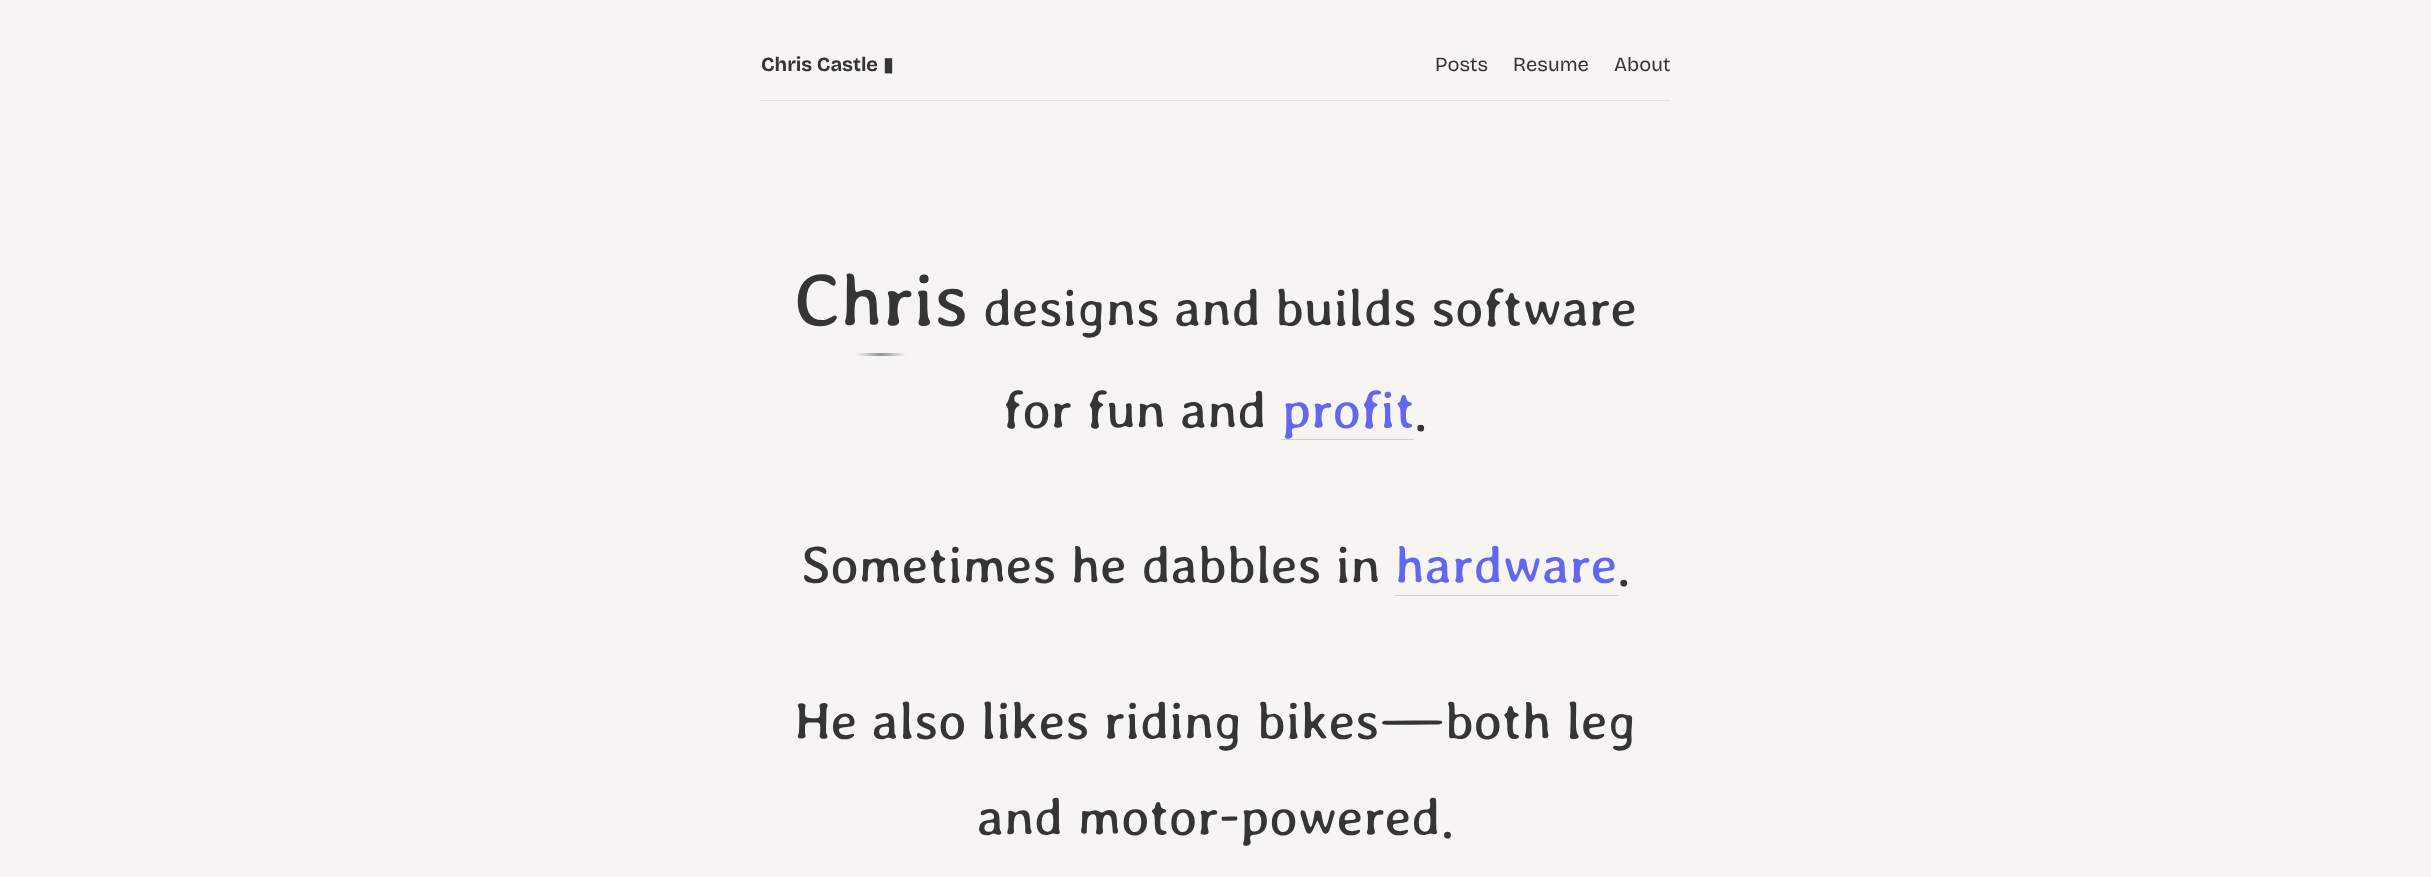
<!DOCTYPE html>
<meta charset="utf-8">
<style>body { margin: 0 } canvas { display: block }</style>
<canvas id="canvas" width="2431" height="877"></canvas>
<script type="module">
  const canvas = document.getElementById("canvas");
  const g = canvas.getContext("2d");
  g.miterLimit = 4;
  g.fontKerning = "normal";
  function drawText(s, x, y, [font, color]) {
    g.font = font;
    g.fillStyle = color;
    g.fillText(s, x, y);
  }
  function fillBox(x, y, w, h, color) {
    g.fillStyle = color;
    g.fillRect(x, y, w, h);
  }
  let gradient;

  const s1 = ["bold 20px Bricolage Grotesque", "#353534"];
  const s2 = ["20px DejaVu Sans", "#353534"];
  const s3 = ["20px Bricolage Grotesque", "#353534"];
  const s4 = ["75px Averia Libre", "#353534"];
  const s5 = ["60px Stylish", "#353534"];
  const s6 = ["60px Stylish", "#6366F1"];

  fillBox(0, 0, 2431, 877, "#F6F5F1");
  drawText("Chris Castle", 761, 71, s1);
  drawText("▮", 883, 71, s2);
  drawText("Posts", 1435, 71, s3);
  drawText("Resume", 1513, 71, s3);
  drawText("About", 1614, 71, s3);
  g.beginPath();
  g.moveTo(761, 100.5);
  g.lineTo(1671, 100.5);
  g.strokeStyle = "#CCCCCC";
  g.lineWidth = 1.2;
  g.setLineDash([1.25, 1.25]);
  g.stroke();
  drawText("Chris", 794, 326, s4);
  gradient = g.createLinearGradient(856, 354, 906, 354);
  gradient.addColorStop(0, "#F6F5F1");
  gradient.addColorStop(0.5, "#8F959C");
  gradient.addColorStop(1, "#F6F5F1");
  g.fillStyle = gradient;
  g.fillRect(856, 353, 50, 3);
  drawText("designs and builds software", 983, 326, s5);
  drawText("for fun and", 1003, 428, s5);
  drawText("profit", 1282, 428, s6);
  fillBox(1281, 439, 133, 1, "#CACAF1");
  drawText(".", 1414, 428, s5);
  drawText("Sometimes he dabbles in", 801, 583, s5);
  drawText("hardware", 1395, 583, s6);
  fillBox(1395, 595, 223, 1, "#CACAF1");
  drawText(".", 1617, 583, s5);
  drawText("He also likes riding bikes—both leg", 794, 739, s5);
  drawText("and motor-powered.", 977, 835, s5);
</script>
